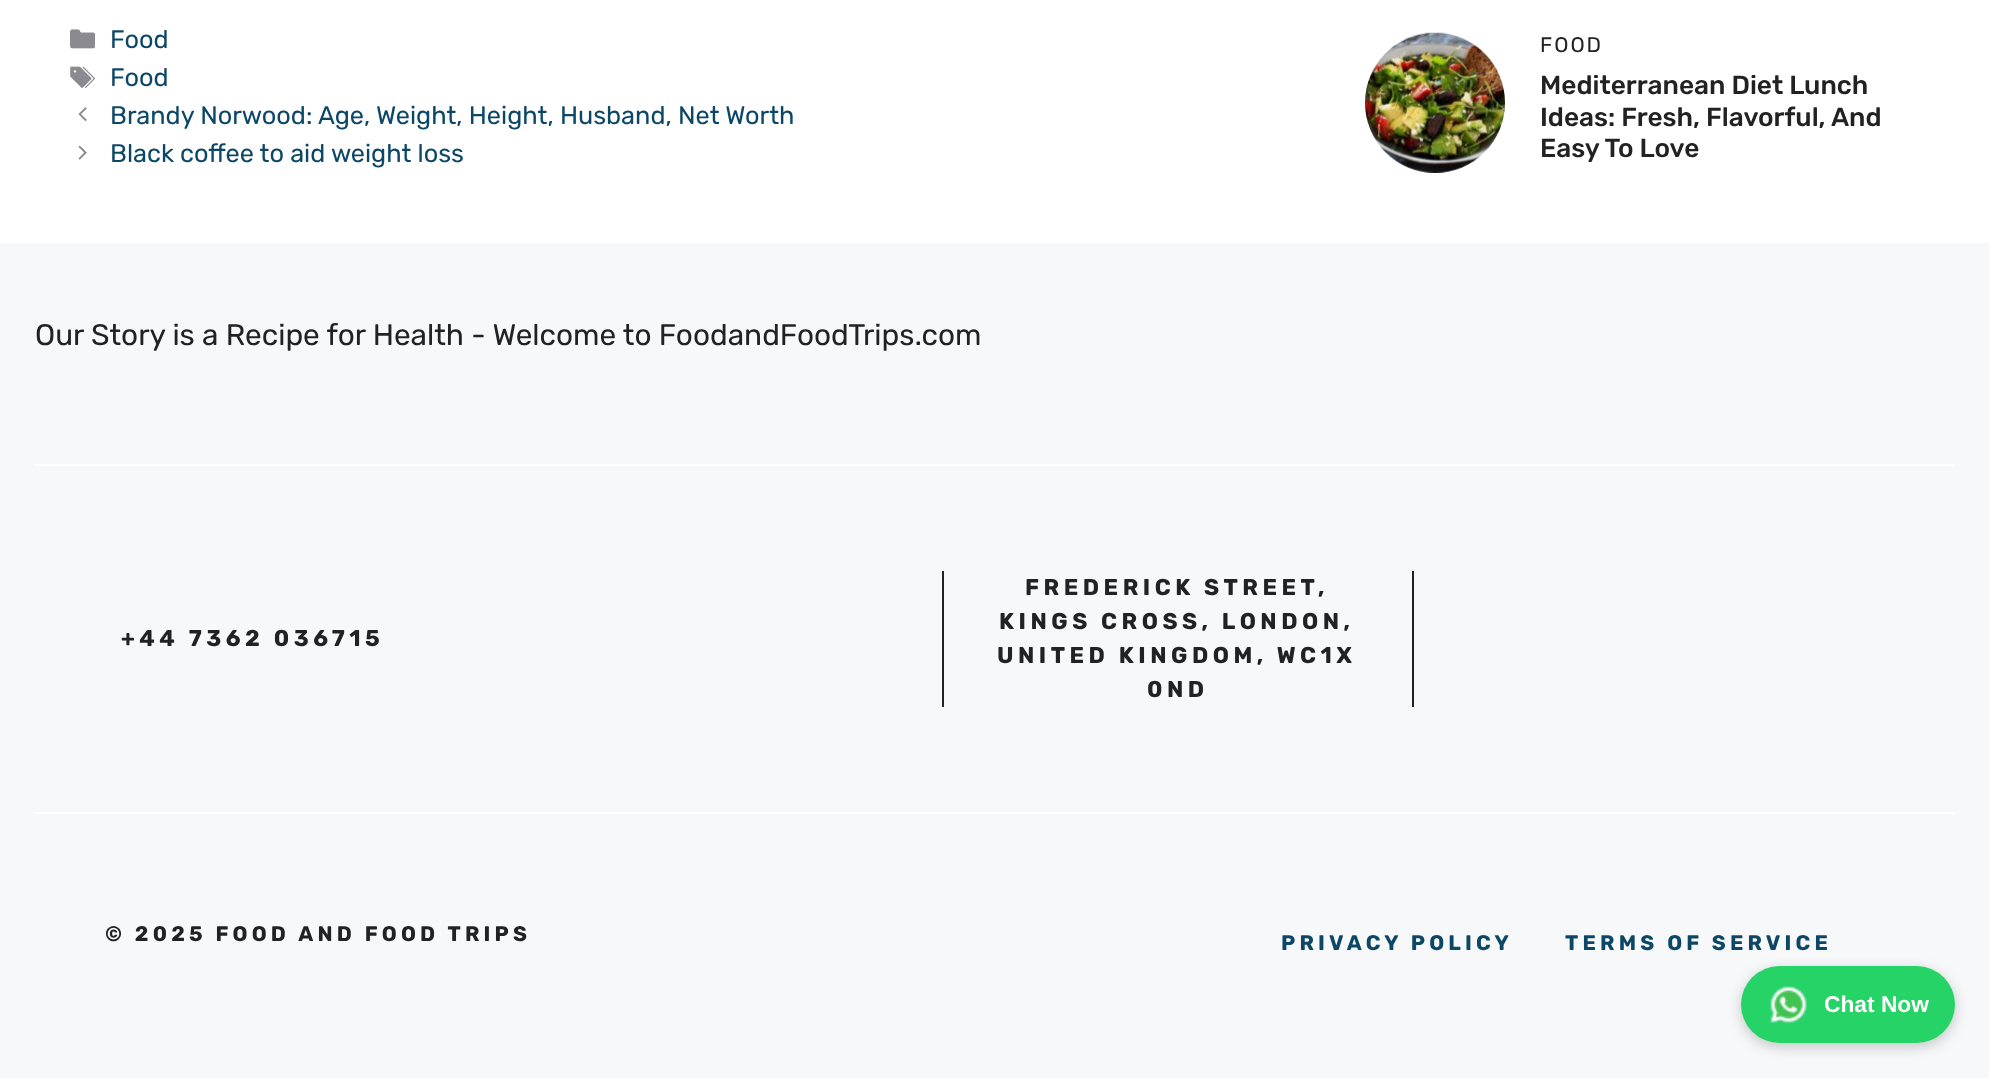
<!DOCTYPE html>
<meta charset="utf-8">
<style>body { margin: 0 } canvas { display: block }</style>
<canvas id="canvas" width="1989" height="1078"></canvas>
<script type="module">
  const canvas = document.getElementById("canvas");
  const g = canvas.getContext("2d");
  g.miterLimit = 4;
  g.fontKerning = "normal";
  function drawText(s, x, y, [font, color]) {
    g.font = font;
    g.fillStyle = color;
    g.fillText(s, x, y);
  }
  function fillBox(x, y, w, h, color) {
    g.fillStyle = color;
    g.fillRect(x, y, w, h);
  }
  function fillRounded(x, y, w, h, r, color) {
    g.fillStyle = color;
    g.beginPath();
    g.roundRect(x, y, w, h, r);
    g.fill();
  }
  async function drawPicture(src, x, y, w, h) {
    const img = new Image();
    img.src = src;
    await img.decode();
    g.drawImage(img, x, y, w, h);
  }

  const s1 = ["25.3px Rubik", "#0C4767"];
  const s2 = ["21px Rubik", "#222222"];
  const s3 = ["500 26.25px Rubik", "#222222"];
  const s4 = ["29.75px Rubik", "#222222"];
  const s5 = ["bold 22.75px Rubik", "#222222"];
  const s6 = ["bold 21px Rubik", "#222222"];
  const s7 = ["bold 21px Rubik", "#0C4767"];
  const s8 = ["bold 22.75px Liberation Sans", "#FFFFFF"];

  fillBox(0, 0, 1989, 1078, "#FFFFFF");
  await drawPicture("pic1.png", 70, 29, 25, 20);
  drawText("Food", 110, 48, s1);
  await drawPicture("pic2.png", 70, 66, 25, 22);
  drawText("Food", 110, 86, s1);
  await drawPicture("pic3.png", 78, 107, 9, 14);
  drawText("Brandy Norwood: Age, Weight, Height, Husband, Net Worth", 110, 124, s1);
  await drawPicture("pic4.png", 78, 145, 9, 15);
  drawText("Black coffee to aid weight loss", 110, 162, s1);
  await drawPicture("pic5.png", 1365, 32, 140, 141);
  g.letterSpacing = "2px";
  drawText("FOOD", 1540, 52, s2);
  g.letterSpacing = "0px";
  drawText("Mediterranean Diet Lunch", 1540, 94, s3);
  drawText("Ideas: Fresh, Flavorful, And", 1540, 126, s3);
  drawText("Easy To Love", 1540, 157, s3);
  fillBox(0, 243, 1989, 835, "#F7F8F9");
  drawText("Our Story is a Recipe for Health - Welcome to FoodandFoodTrips.com", 35, 345, s4);
  fillBox(35, 464, 1920, 2, "#FFFFFF");
  fillBox(35, 812, 1920, 2, "#FFFFFF");
  g.letterSpacing = "4.5px";
  drawText("+44 7362 036715", 121, 646, s5);
  fillBox(1412, 571, 2, 136, "#222222");
  fillBox(942, 571, 2, 136, "#222222");
  drawText("FREDERICK STREET,", 1025, 595, s5);
  drawText("KINGS CROSS, LONDON,", 999, 629, s5);
  drawText("UNITED KINGDOM, WC1X", 997, 663, s5);
  drawText("0ND", 1147, 697, s5);
  g.letterSpacing = "4.2px";
  drawText("© 2025 FOOD AND FOOD TRIPS", 105, 941, s6);
  drawText("PRIVACY POLICY", 1281, 950, s7);
  drawText("TERMS OF SERVICE", 1565, 950, s7);
  g.fillStyle = "rgba(0, 0, 0, 0.2)";
  g.filter = "blur(7px)";
  g.beginPath();
  g.roundRect(1741, 970, 214, 77, 38.5);
  g.fill();
  g.filter = "none";
  fillRounded(1741, 966, 214, 77, 38.5, "#25D366");
  await drawPicture("pic6.png", 1770, 986, 37, 38);
  g.letterSpacing = "0px";
  drawText("Chat Now", 1824, 1012, s8);
</script>
